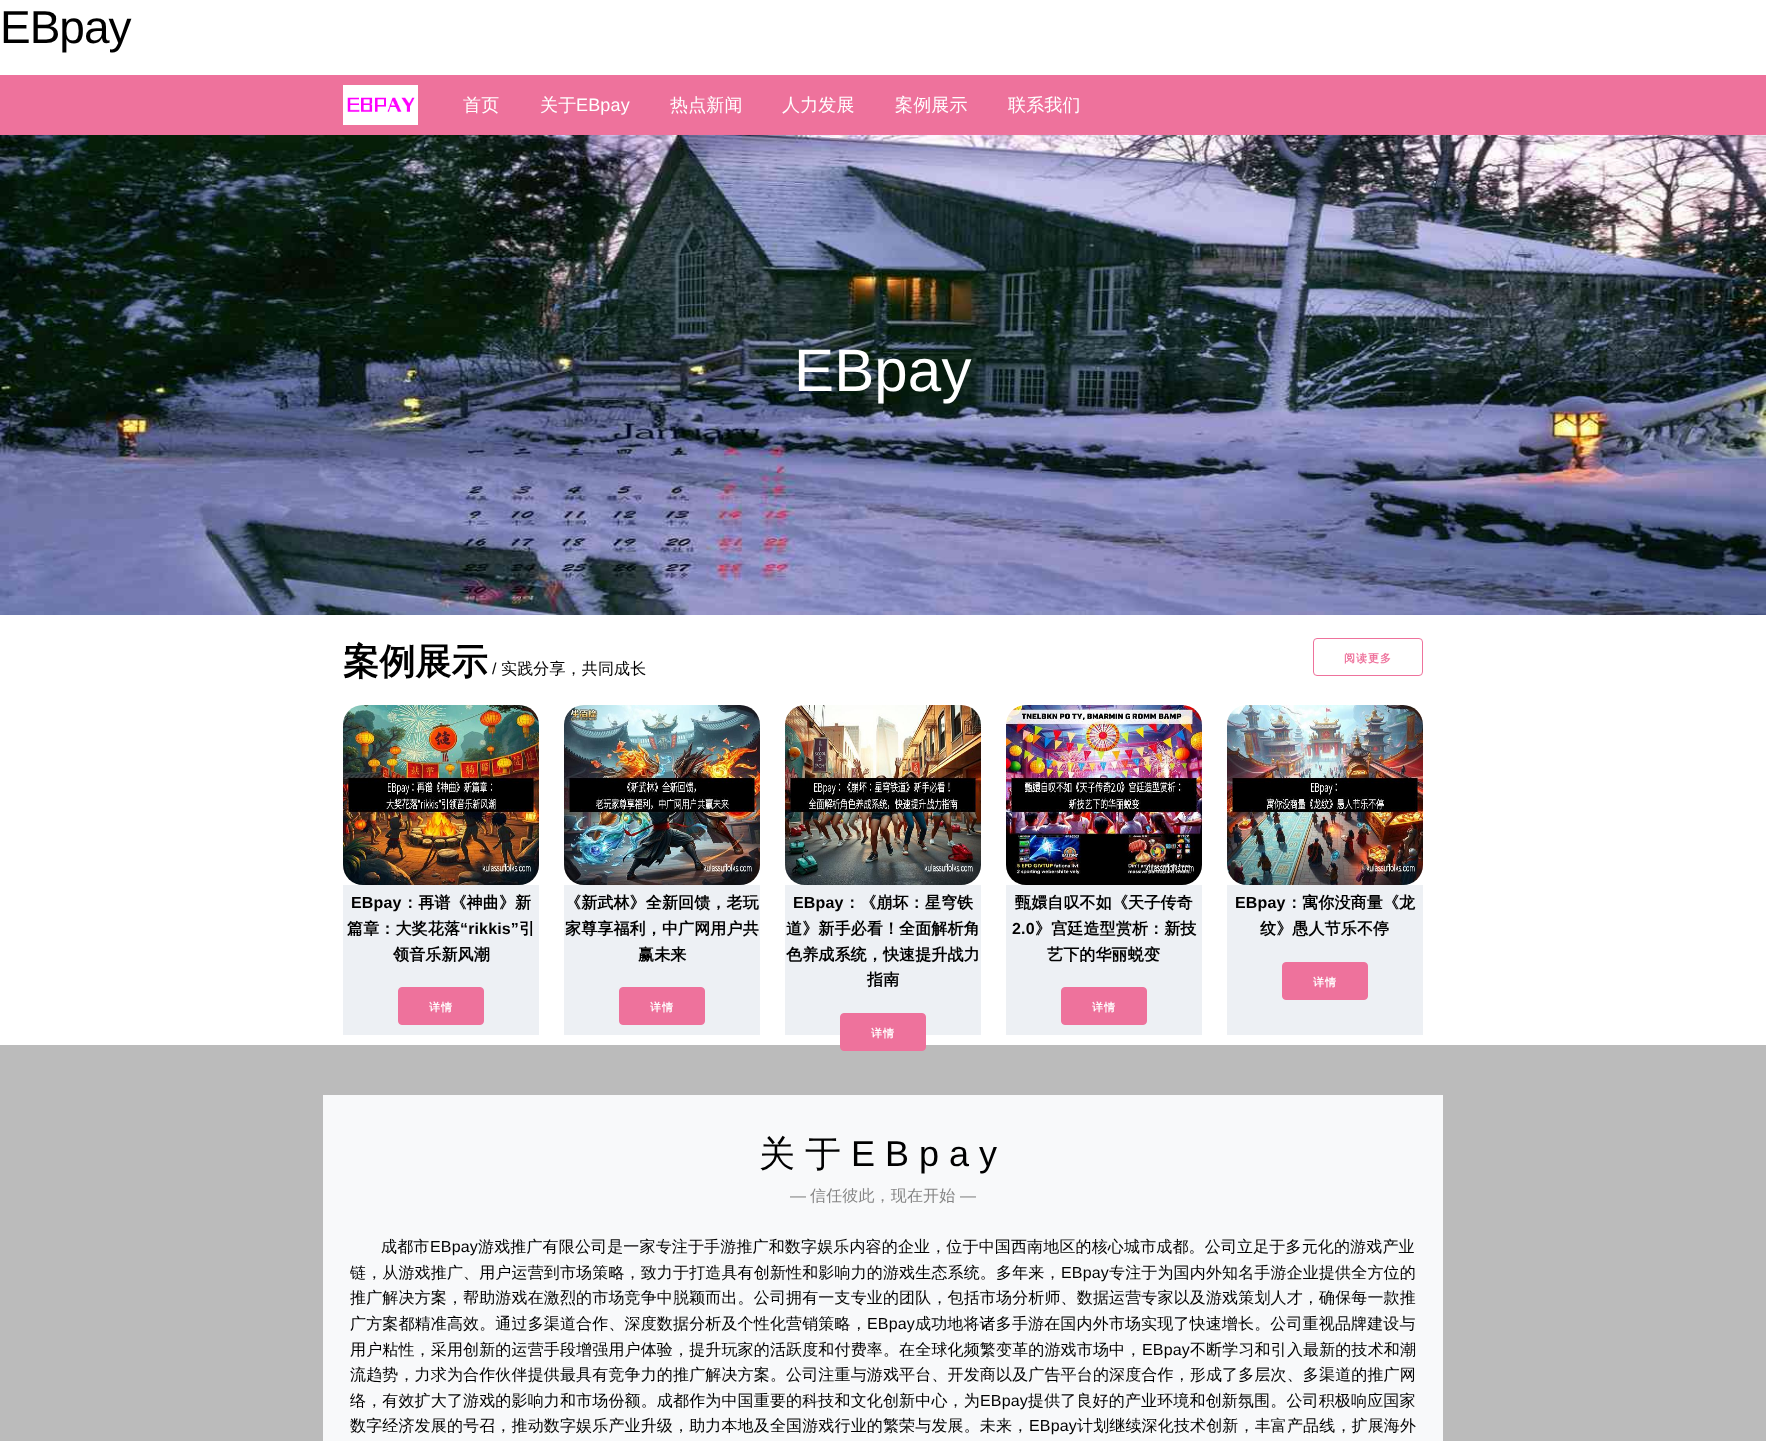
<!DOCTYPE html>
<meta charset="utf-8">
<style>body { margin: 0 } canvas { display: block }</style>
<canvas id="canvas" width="1766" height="1441"></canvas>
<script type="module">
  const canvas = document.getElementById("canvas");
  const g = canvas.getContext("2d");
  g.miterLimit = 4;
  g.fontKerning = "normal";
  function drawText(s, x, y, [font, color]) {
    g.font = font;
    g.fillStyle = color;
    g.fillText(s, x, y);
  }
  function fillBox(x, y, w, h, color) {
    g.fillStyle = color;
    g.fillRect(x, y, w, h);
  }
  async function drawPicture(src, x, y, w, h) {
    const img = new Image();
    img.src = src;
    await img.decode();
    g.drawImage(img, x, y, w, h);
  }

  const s1 = ["46px Liberation Sans", "#000000"];
  const s2 = ["500 18px WenQuanYi Zen Hei", "#FFFFFF"];
  const s3 = ["18px Liberation Sans", "#FFFFFF"];
  const s4 = ["60px Liberation Sans", "#FFFFFF"];
  const s5 = ["bold 36px WenQuanYi Zen Hei", "#000000"];
  const s6 = ["16px Liberation Sans", "#000000"];
  const s7 = ["500 16px WenQuanYi Zen Hei", "#000000"];
  const s8 = ["bold 11px WenQuanYi Zen Hei", "#EE729C"];
  const s9 = ["bold 16px Liberation Sans", "#000000"];
  const s10 = ["bold 16px WenQuanYi Zen Hei", "#000000"];
  const s11 = ["bold 11px WenQuanYi Zen Hei", "#FFFFFF"];
  const s12 = ["500 36px WenQuanYi Zen Hei", "#000000"];
  const s13 = ["36px Liberation Sans", "#000000"];
  const s14 = ["16px Liberation Sans", "#858585"];
  const s15 = ["500 16px WenQuanYi Zen Hei", "#858585"];

  fillBox(0, 0, 1766, 1441, "#FFFFFF");
  g.letterSpacing = "-1px";
  drawText("EBpay", 0, 43, s1);
  fillBox(0, 75, 1766, 60, "#EE729C");
  await drawPicture("pic1.png", 343, 85, 75, 40);
  g.letterSpacing = "0.15px";
  drawText("首页", 463, 111, s2);
  drawText("关于", 540, 111, s2);
  drawText("EBpay", 576, 111, s3);
  drawText("热点新闻", 670, 111, s2);
  drawText("人力发展", 782, 111, s2);
  drawText("案例展示", 895, 111, s2);
  drawText("联系我们", 1008, 111, s2);
  await drawPicture("pic2.png", 0, 135, 1766, 480);
  drawText("EBpay", 794, 391, s4);
  drawText("案例展示", 343, 674, s5);
  drawText("/", 492, 674, s6);
  drawText("实践分享，共同成长", 501, 674, s7);
  g.beginPath();
  g.roundRect(1313.5, 638.5, 109, 37, 3.5);
  g.strokeStyle = "#EE729C";
  g.stroke();
  g.letterSpacing = "1px";
  drawText("阅读更多", 1344, 662, s8);
  await drawPicture("pic3.png", 343, 705, 196, 180);
  fillBox(343, 885, 196, 150, "#EDF0F4");
  g.letterSpacing = "0.15px";
  drawText("EBpay", 351, 908, s9);
  drawText("：再谱《神曲》新", 402, 908, s10);
  drawText("篇章：大奖花落", 347, 934, s10);
  drawText("“rikkis”", 460, 934, s9);
  drawText("引", 519, 934, s10);
  drawText("领音乐新风潮", 393, 960, s10);
  g.fillStyle = "#EE729C";
  g.beginPath();
  g.roundRect(398.5, 987.5, 85, 37, 3.5);
  g.fill();
  g.stroke();
  g.letterSpacing = "1px";
  drawText("详情", 429, 1011, s11);
  await drawPicture("pic4.png", 564, 705, 196, 180);
  fillBox(564, 885, 196, 150, "#EDF0F4");
  g.letterSpacing = "0.15px";
  drawText("《新武林》全新回馈，老玩", 565, 908, s10);
  drawText("家尊享福利，中广网用户共", 565, 934, s10);
  drawText("赢未来", 638, 960, s10);
  g.fillStyle = "#EE729C";
  g.beginPath();
  g.roundRect(619.5, 987.5, 85, 37, 3.5);
  g.fill();
  g.stroke();
  g.letterSpacing = "1px";
  drawText("详情", 650, 1011, s11);
  await drawPicture("pic5.png", 785, 705, 196, 180);
  fillBox(785, 885, 196, 150, "#EDF0F4");
  g.letterSpacing = "0.15px";
  drawText("EBpay", 793, 908, s9);
  drawText("：《崩坏：星穹铁", 844, 908, s10);
  drawText("道》新手必看！全面解析角", 786, 934, s10);
  drawText("色养成系统，快速提升战力", 786, 960, s10);
  drawText("指南", 867, 985, s10);
  fillBox(0, 1045, 1766, 396, "#BBBBBB");
  g.fillStyle = "#EE729C";
  g.beginPath();
  g.roundRect(840.5, 1013.5, 85, 37, 3.5);
  g.fill();
  g.stroke();
  g.letterSpacing = "1px";
  drawText("详情", 871, 1037, s11);
  await drawPicture("pic6.png", 1006, 705, 196, 180);
  fillBox(1006, 885, 196, 150, "#EDF0F4");
  g.letterSpacing = "0.15px";
  drawText("甄嬛自叹不如《天子传奇", 1015, 908, s10);
  drawText("2.0", 1012, 934, s9);
  drawText("》宫廷造型赏析：新技", 1035, 934, s10);
  drawText("艺下的华丽蜕变", 1047, 960, s10);
  g.fillStyle = "#EE729C";
  g.beginPath();
  g.roundRect(1061.5, 987.5, 85, 37, 3.5);
  g.fill();
  g.stroke();
  g.letterSpacing = "1px";
  drawText("详情", 1092, 1011, s11);
  await drawPicture("pic7.png", 1227, 705, 196, 180);
  fillBox(1227, 885, 196, 150, "#EDF0F4");
  g.letterSpacing = "0.15px";
  drawText("EBpay", 1235, 908, s9);
  drawText("：寓你没商量《龙", 1286, 908, s10);
  drawText("纹》愚人节乐不停", 1260, 934, s10);
  g.fillStyle = "#EE729C";
  g.beginPath();
  g.roundRect(1282.5, 962.5, 85, 37, 3.5);
  g.fill();
  g.stroke();
  g.letterSpacing = "1px";
  drawText("详情", 1313, 986, s11);
  fillBox(323, 1095, 1120, 346, "#F8F9FA");
  g.letterSpacing = "10px";
  drawText("关于", 759, 1166, s12);
  drawText("EBpay", 851, 1166, s13);
  g.letterSpacing = "0.15px";
  drawText("—", 790, 1201, s14);
  drawText("信任彼此，现在开始", 810, 1201, s15);
  drawText("—", 960, 1201, s14);
  drawText("成都市", 381, 1252, s7);
  drawText("EBpay", 430, 1252, s6);
  drawText("游戏推广有限公司是一家专注于手游推广和数字娱乐内容的企业，位于中国西南地区的核心城市成都。公司立足于多元化的游戏产业", 478, 1252, s7);
  drawText("链，从游戏推广、用户运营到市场策略，致力于打造具有创新性和影响力的游戏生态系统。多年来，", 350, 1278, s7);
  drawText("EBpay", 1061, 1278, s6);
  drawText("专注于为国内外知名手游企业提供全方位的", 1109, 1278, s7);
  drawText("推广解决方案，帮助游戏在激烈的市场竞争中脱颖而出。公司拥有一支专业的团队，包括市场分析师、数据运营专家以及游戏策划人才，确保每一款推", 350, 1303, s7);
  drawText("广方案都精准高效。通过多渠道合作、深度数据分析及个性化营销策略，", 350, 1329, s7);
  drawText("EBpay", 867, 1329, s6);
  drawText("成功地将诸多手游在国内外市场实现了快速增长。公司重视品牌建设与", 915, 1329, s7);
  drawText("用户粘性，采用创新的运营手段增强用户体验，提升玩家的活跃度和付费率。在全球化频繁变革的游戏市场中，", 350, 1355, s7);
  drawText("EBpay", 1142, 1355, s6);
  drawText("不断学习和引入最新的技术和潮", 1190, 1355, s7);
  drawText("流趋势，力求为合作伙伴提供最具有竞争力的推广解决方案。公司注重与游戏平台、开发商以及广告平台的深度合作，形成了多层次、多渠道的推广网", 350, 1380, s7);
  drawText("络，有效扩大了游戏的影响力和市场份额。成都作为中国重要的科技和文化创新中心，为", 350, 1406, s7);
  drawText("EBpay", 980, 1406, s6);
  drawText("提供了良好的产业环境和创新氛围。公司积极响应国家", 1028, 1406, s7);
  drawText("数字经济发展的号召，推动数字娱乐产业升级，助力本地及全国游戏行业的繁荣与发展。未来，", 350, 1431, s7);
  drawText("EBpay", 1029, 1431, s6);
  drawText("计划继续深化技术创新，丰富产品线，扩展海外", 1077, 1431, s7);
</script>
